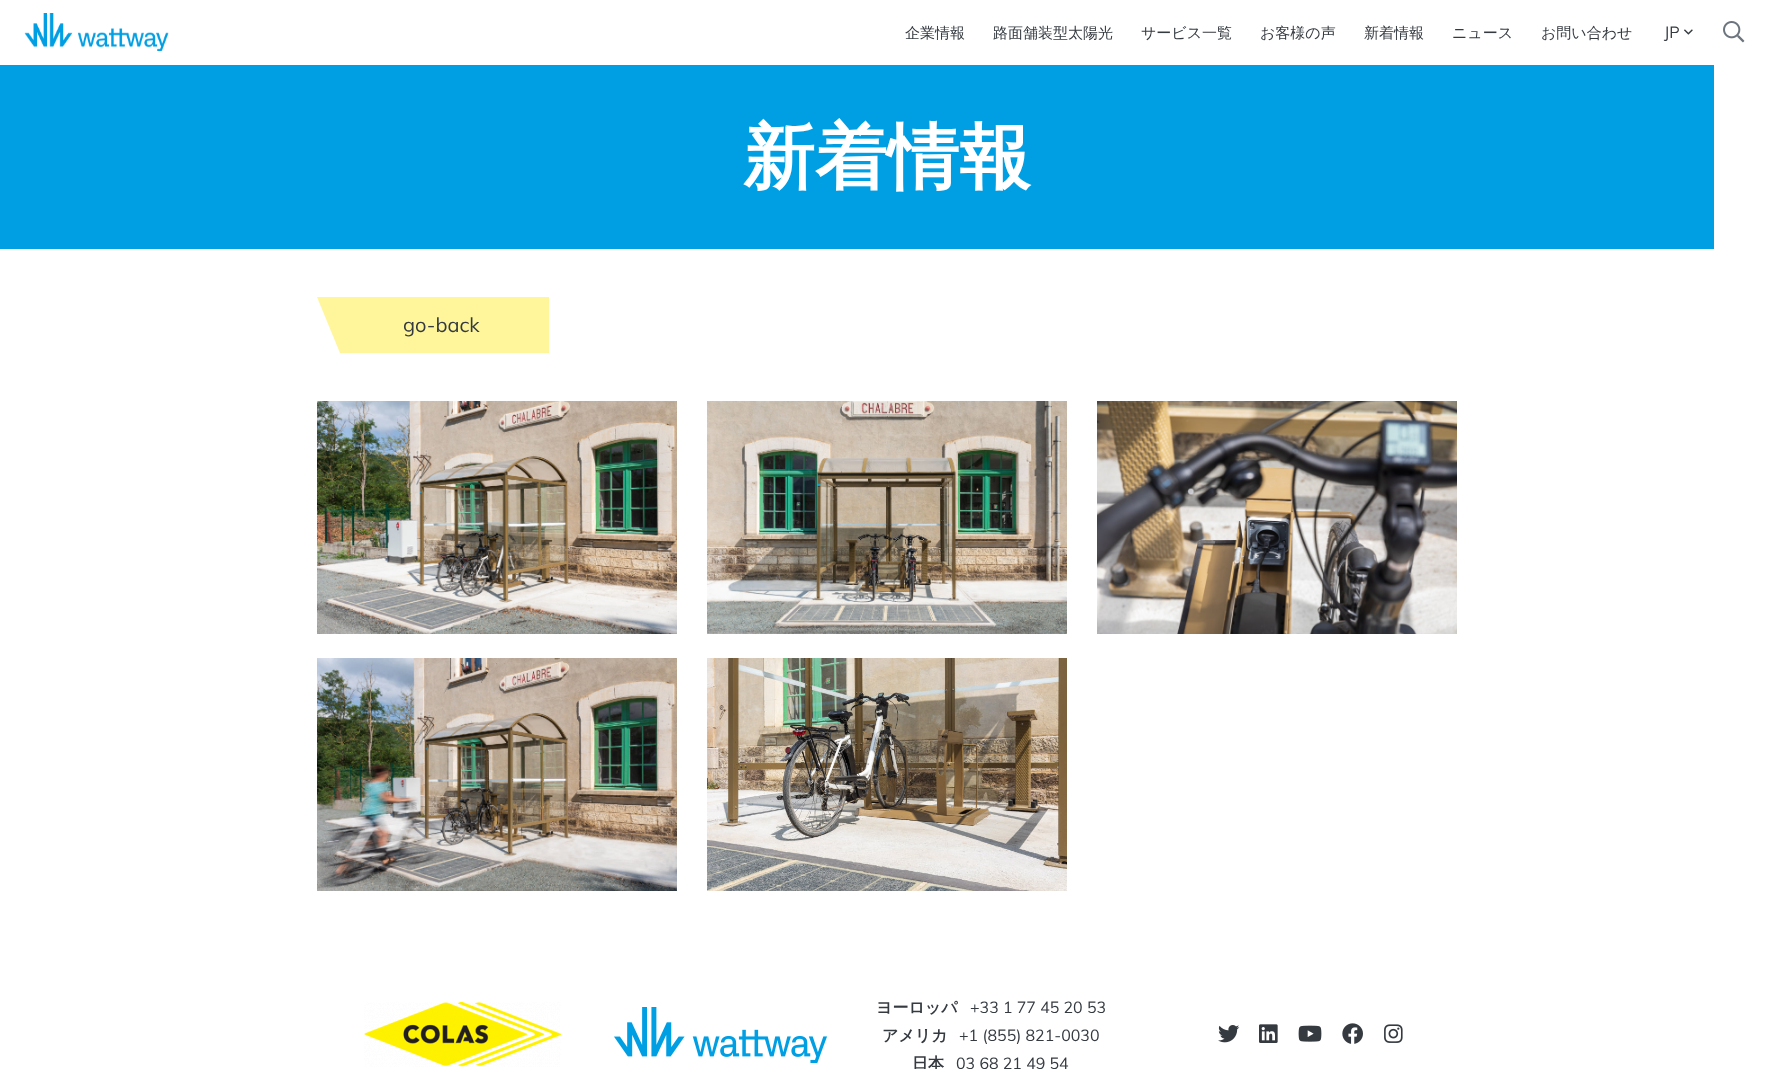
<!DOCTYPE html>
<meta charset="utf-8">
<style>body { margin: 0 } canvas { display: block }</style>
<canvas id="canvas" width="1774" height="1069"></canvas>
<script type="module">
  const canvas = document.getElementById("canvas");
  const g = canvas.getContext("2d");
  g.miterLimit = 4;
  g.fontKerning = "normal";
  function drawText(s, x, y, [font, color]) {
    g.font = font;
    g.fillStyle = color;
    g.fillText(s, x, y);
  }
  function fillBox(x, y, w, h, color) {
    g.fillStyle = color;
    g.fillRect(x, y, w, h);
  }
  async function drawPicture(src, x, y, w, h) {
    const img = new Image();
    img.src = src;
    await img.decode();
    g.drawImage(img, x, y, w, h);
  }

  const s1 = ["500 15px WenQuanYi Zen Hei", "#343A40"];
  const s2 = ["16px Muli", "#343A40"];
  const s3 = ["bold 72px WenQuanYi Zen Hei", "#FFFFFF"];
  const s4 = ["20px Muli", "#343A40"];
  const s5 = ["bold 16px WenQuanYi Zen Hei", "#343A40"];

  fillBox(0, 0, 1774, 1069, "#FFFFFF");
  await drawPicture("pic1.png", 24, 13, 145, 38);
  drawText("企業情報", 905, 38, s1);
  drawText("路面舗装型太陽光", 993, 38, s1);
  drawText("サービス一覧", 1141, 38, s1);
  drawText("お客様の声", 1260, 38, s1);
  drawText("新着情報", 1364, 38, s1);
  drawText("ニュース", 1452, 38, s1);
  drawText("お問い合わせ", 1541, 38, s1);
  drawText("JP", 1664, 38, s2);
  await drawPicture("pic2.png", 1684, 29, 9, 6);
  await drawPicture("pic3.png", 1723, 21, 22, 22);
  fillBox(0, 65, 1714, 184, "#009FE3");
  drawText("新着情報", 743, 182, s3);
  g.fillStyle = "#FFF69B";
  g.beginPath();
  g.moveTo(549, 353);
  g.lineTo(549, 297);
  g.lineTo(317, 297);
  g.lineTo(340, 353);
  g.closePath();
  g.fill();
  drawText("go-back", 403, 332, s4);
  await drawPicture("pic4.png", 317, 401, 360, 233);
  await drawPicture("pic5.png", 707, 401, 360, 233);
  await drawPicture("pic6.png", 1097, 401, 360, 233);
  await drawPicture("pic7.png", 317, 658, 360, 233);
  await drawPicture("pic8.png", 707, 658, 360, 233);
  await drawPicture("pic9.png", 364, 1002, 197, 65);
  await drawPicture("pic10.png", 614, 1007, 213, 56);
  drawText("ヨーロッパ", 876, 1013, s5);
  drawText("+33 1 77 45 20 53", 970, 1013, s2);
  drawText("アメリカ", 882, 1041, s5);
  drawText("+1 (855) 821-0030", 959, 1041, s2);
  drawText("日本", 912, 1069, s5);
  drawText("03 68 21 49 54", 956, 1069, s2);
  await drawPicture("pic11.png", 1218, 1025, 22, 18);
  await drawPicture("pic12.png", 1259, 1024, 19, 19);
  await drawPicture("pic13.png", 1298, 1025, 24, 17);
  await drawPicture("pic14.png", 1342, 1023, 21, 21);
  await drawPicture("pic15.png", 1384, 1024, 19, 19);
</script>
